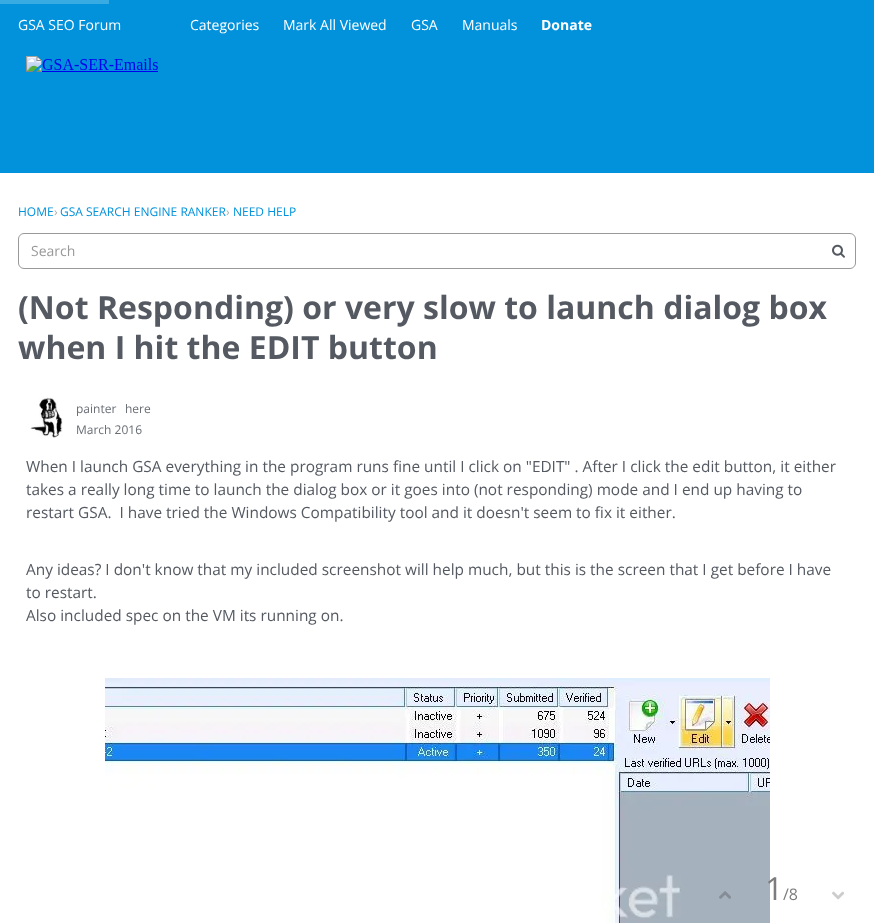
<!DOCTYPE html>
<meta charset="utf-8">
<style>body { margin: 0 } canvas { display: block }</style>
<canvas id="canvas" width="874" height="923"></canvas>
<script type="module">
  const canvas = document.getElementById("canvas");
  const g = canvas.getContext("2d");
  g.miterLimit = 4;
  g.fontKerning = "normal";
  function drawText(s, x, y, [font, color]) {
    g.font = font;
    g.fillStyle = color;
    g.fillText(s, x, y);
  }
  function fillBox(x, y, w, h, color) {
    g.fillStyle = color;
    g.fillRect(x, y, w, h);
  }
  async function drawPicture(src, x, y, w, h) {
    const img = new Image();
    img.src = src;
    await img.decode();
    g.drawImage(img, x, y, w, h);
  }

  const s1 = ["14px Open Sans", "#FFFFFF"];
  const s2 = ["bold 14px Open Sans", "#FFFFFF"];
  const s3 = ["12px Open Sans", "#0291DB"];
  const s4 = ["12px Open Sans", "#AAADB1"];
  const s5 = ["14px Open Sans", "#999999"];
  const s6 = ["bold 32px Open Sans", "#555A62"];
  const s7 = ["12px Open Sans", "#696E75"];
  const s8 = ["15.4px Open Sans", "#555A62"];
  const s9 = ["32px Open Sans", "#7C7C7D"];
  const s10 = ["16px Open Sans", "#7C7C7D"];

  fillBox(0, 0, 874, 923, "#FFFFFF");
  fillBox(0, 0, 874, 173, "#0291DB");
  fillBox(0, 0, 109, 4, "#38ABE3");
  drawText("GSA SEO Forum", 18, 30, s1);
  drawText("Categories", 190, 30, s1);
  drawText("Mark All Viewed", 283, 30, s1);
  drawText("GSA", 411, 30, s1);
  drawText("Manuals", 462, 30, s1);
  drawText("Donate", 541, 30, s2);
  await drawPicture("pic1.png", 26, 56, 132, 16);
  drawText("HOME", 18, 216, s3);
  drawText("›", 54, 216, s4);
  drawText("GSA SEARCH ENGINE RANKER", 60, 216, s3);
  drawText("›", 226, 216, s4);
  drawText("NEED HELP", 233, 216, s3);
  g.beginPath();
  g.roundRect(18.5, 233.5, 837, 35, 5.5);
  g.strokeStyle = "#999999";
  g.stroke();
  drawText("Search", 31, 256, s5);
  await drawPicture("pic2.png", 832, 244, 13, 14);
  drawText("(Not Responding) or very slow to launch dialog box", 18, 319, s6);
  drawText("when I hit the EDIT button", 18, 359, s6);
  await drawPicture("pic3.png", 30, 397, 33, 41);
  drawText("painter", 76, 413, s7);
  drawText("here", 125, 413, s7);
  drawText("March 2016", 76, 434, s7);
  drawText("When I launch GSA everything in the program runs fine until I click on \"EDIT\" . After I click the edit button, it either", 26, 472, s8);
  drawText("takes a really long time to launch the dialog box or it goes into (not responding) mode and I end up having to", 26, 495, s8);
  drawText("restart GSA.  I have tried the Windows Compatibility tool and it doesn't seem to fix it either.", 26, 518, s8);
  drawText("Any ideas? I don't know that my included screenshot will help much, but this is the screen that I get before I have", 26, 575, s8);
  drawText("to restart.", 26, 598, s8);
  drawText("Also included spec on the VM its running on.", 26, 621, s8);
  await drawPicture("pic4.png", 105, 678, 665, 245);
  await drawPicture("pic5.png", 719, 891, 12, 8);
  drawText("1", 765, 900, s9);
  drawText("/8", 783, 900, s10);
  await drawPicture("pic6.png", 832, 891, 12, 9);
</script>
